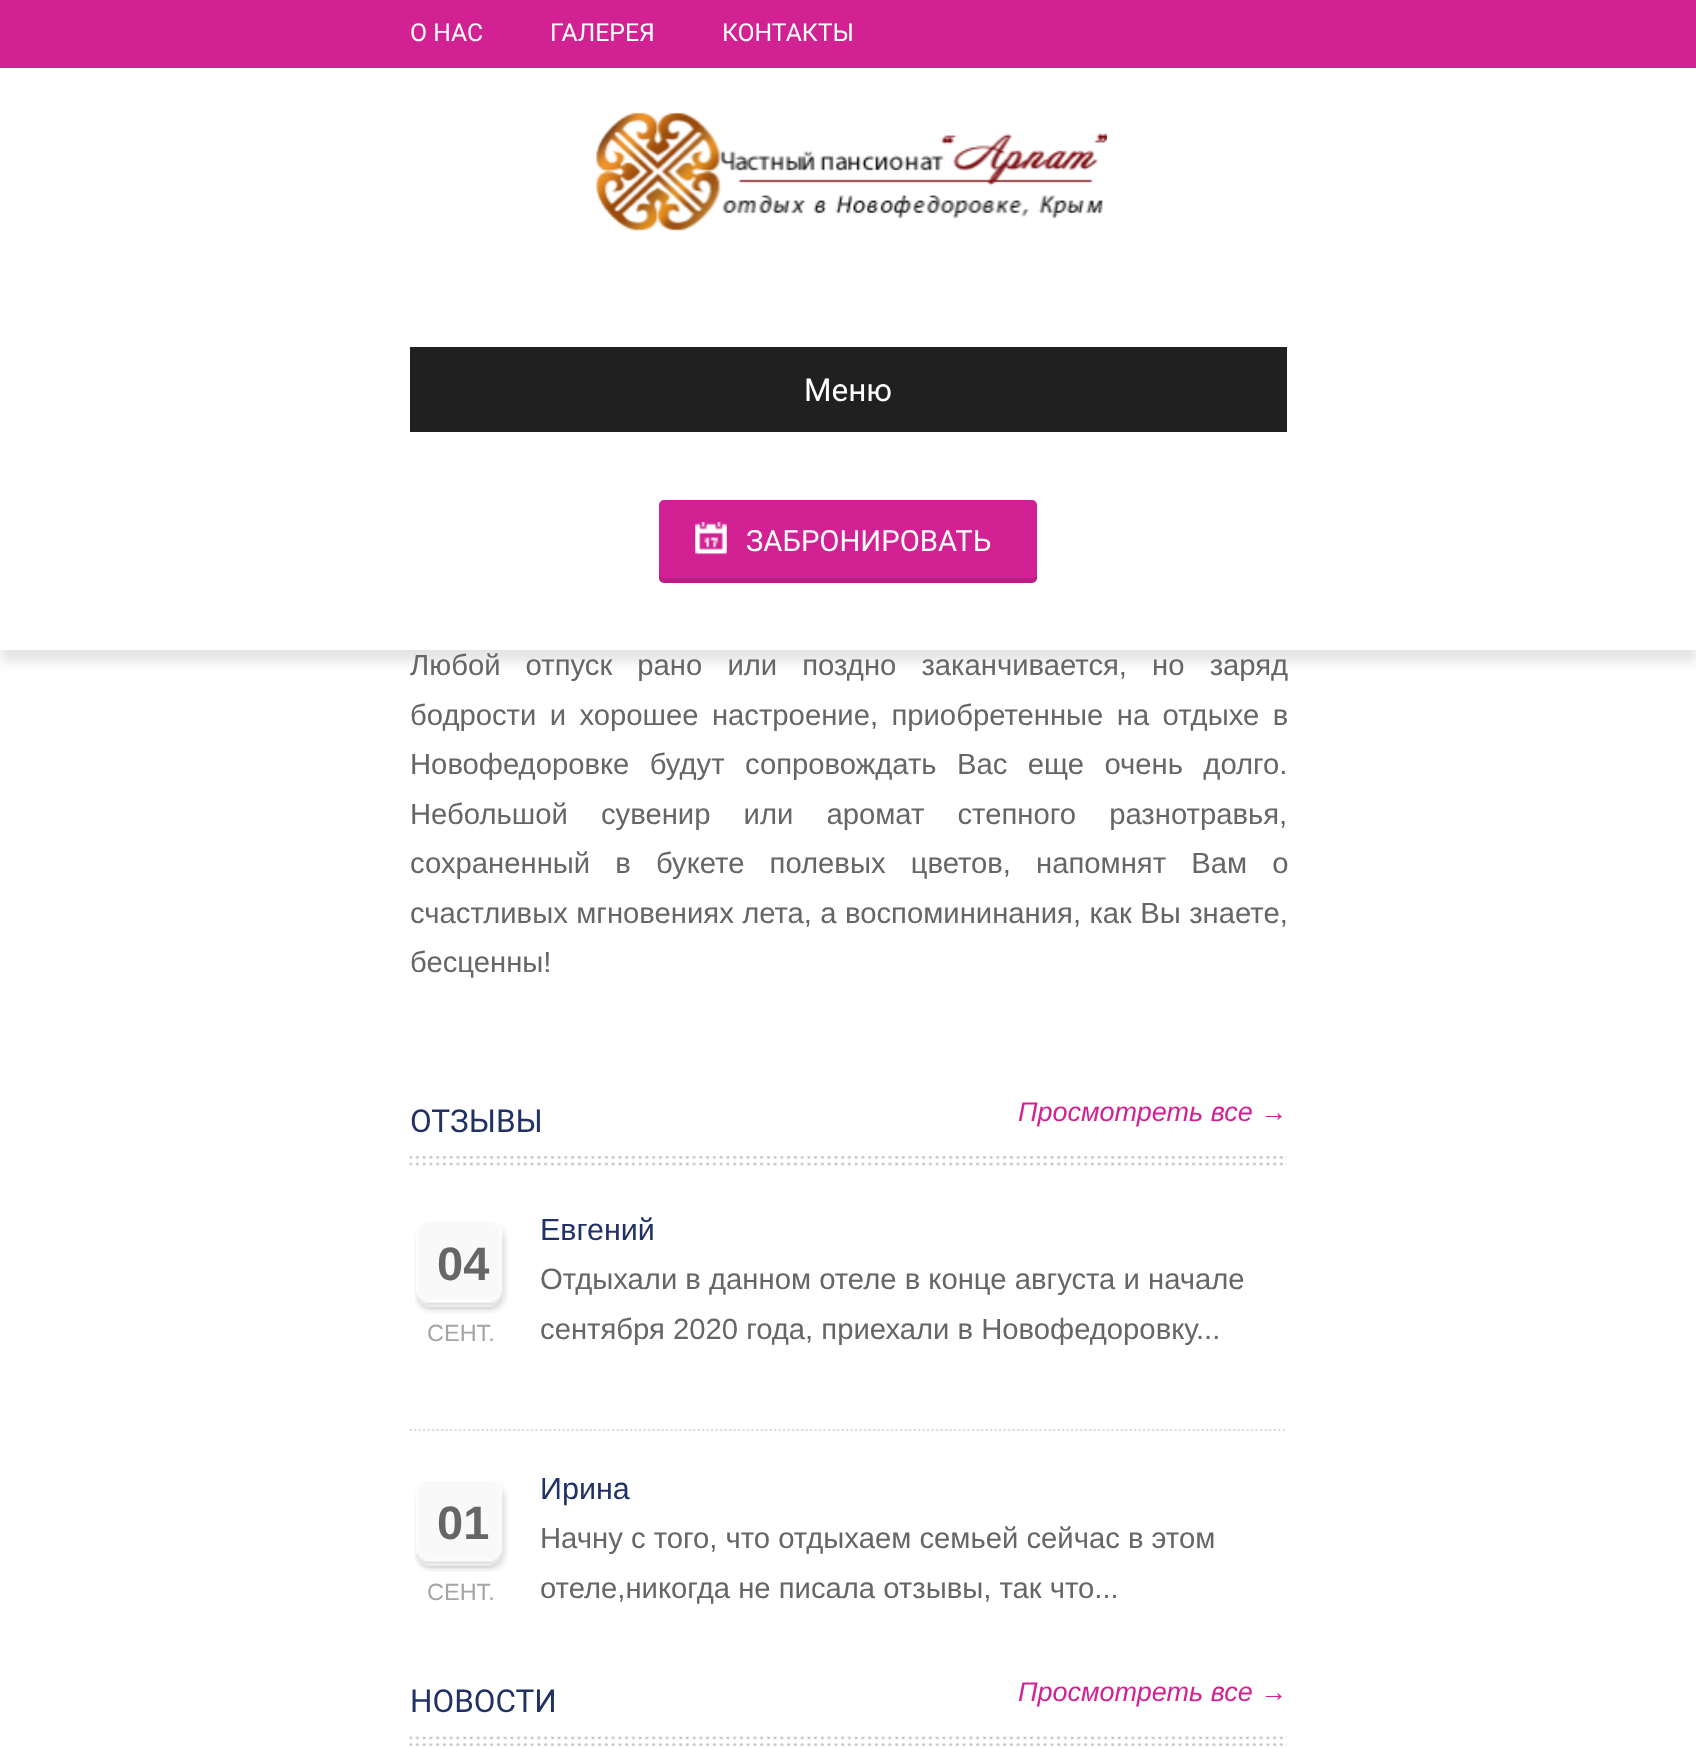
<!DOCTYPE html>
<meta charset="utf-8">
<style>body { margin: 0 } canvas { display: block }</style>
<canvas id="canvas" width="1696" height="1749"></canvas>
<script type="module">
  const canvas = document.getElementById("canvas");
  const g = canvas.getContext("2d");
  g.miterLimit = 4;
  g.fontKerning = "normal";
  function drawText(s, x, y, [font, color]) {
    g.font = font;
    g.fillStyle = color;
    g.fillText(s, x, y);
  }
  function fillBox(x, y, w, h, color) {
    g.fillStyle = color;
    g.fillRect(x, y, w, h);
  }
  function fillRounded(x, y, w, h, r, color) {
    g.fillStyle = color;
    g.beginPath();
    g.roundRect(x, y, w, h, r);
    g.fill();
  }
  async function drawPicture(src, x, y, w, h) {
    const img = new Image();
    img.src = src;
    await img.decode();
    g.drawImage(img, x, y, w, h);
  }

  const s1 = ["24.75px Roboto", "#FFFFFF"];
  const s2 = ["31.5px Roboto", "#FFFFFF"];
  const s3 = ["29.25px Roboto", "#FFFFFF"];
  const s4 = ["29.25px Liberation Sans", "#666666"];
  const s5 = ["31.5px Roboto", "#213165"];
  const s6 = ["italic 27px Liberation Sans", "#D22193"];
  const s7 = ["30.5px Liberation Sans", "#213165"];
  const s8 = ["bold 47px Liberation Sans", "#666666"];
  const s9 = ["23.5px Liberation Sans", "#A5A5A5"];

  fillBox(0, 0, 1696, 1749, "#FFFFFF");
  fillBox(0, 0, 1696, 68, "#D22193");
  drawText("О НАС", 410, 41, s1);
  drawText("ГАЛЕРЕЯ", 550, 41, s1);
  drawText("КОНТАКТЫ", 722, 41, s1);
  g.fillStyle = "rgba(0, 0, 0, 0.1)";
  g.filter = "blur(5.5px)";
  g.beginPath();
  g.rect(0, 79, 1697, 583);
  g.fill();
  g.filter = "none";
  fillBox(0, 72, 1696, 578, "#FFFFFF");
  await drawPicture("pic1.png", 596, 112, 511, 119);
  fillBox(410, 347, 877, 85, "#202020");
  drawText("Меню", 804, 401, s2);
  fillRounded(659, 500, 378, 83, 5, "#D22193");
  await drawPicture("pic2.png", 695, 522, 32, 33);
  g.fillStyle = "rgba(0, 0, 0, 0.1)";
  g.beginPath();
  g.moveTo(659, 574);
  g.bezierCurveTo(659, 578, 659, 583, 664, 583);
  g.lineTo(1033, 583);
  g.bezierCurveTo(1037, 582, 1037, 577, 1037, 574);
  g.bezierCurveTo(1037, 576, 1035, 578, 1033, 578);
  g.lineTo(664, 578);
  g.bezierCurveTo(661, 578, 659, 576, 659, 574);
  g.closePath();
  g.fill();
  drawText("ЗАБРОНИРОВАТЬ", 746, 551, s3);
  g.wordSpacing = "17px";
  drawText("Любой отпуск рано или поздно заканчивается, но заряд", 410, 675, s4);
  g.wordSpacing = "5.25px";
  drawText("бодрости и хорошее настроение, приобретенные на отдыхе в", 410, 725, s4);
  g.wordSpacing = "12.25px";
  drawText("Новофедоровке будут сопровождать Вас еще очень долго.", 410, 774, s4);
  g.wordSpacing = "25px";
  drawText("Небольшой сувенир или аромат степного разнотравья,", 410, 824, s4);
  g.wordSpacing = "17px";
  drawText("сохраненный в букете полевых цветов, напомнят Вам о", 410, 873, s4);
  g.wordSpacing = "0.25px";
  drawText("счастливых мгновениях лета, а воспомининания, как Вы знаете,", 410, 923, s4);
  g.wordSpacing = "0px";
  drawText("бесценны!", 410, 972, s4);
  await drawPicture("pic3.png", 409, 1156, 878, 10);
  drawText("ОТЗЫВЫ", 410, 1132, s5);
  drawText("Просмотреть все →", 1018, 1121, s6);
  g.beginPath();
  g.moveTo(409.5, 1430);
  g.lineTo(1287, 1430);
  g.strokeStyle = "#DDDDDD";
  g.lineWidth = 2.2;
  g.setLineDash([2.25, 2.25]);
  g.stroke();
  drawText("Евгений", 540, 1240, s7);
  await drawPicture("pic4.png", 414, 1222, 94, 92);
  drawText("04", 437, 1280, s8);
  drawText("СЕНТ.", 427, 1341, s9);
  drawText("Отдыхали в данном отеле в конце августа и начале", 540, 1289, s4);
  drawText("сентября 2020 года, приехали в Новофедоровку...", 540, 1339, s4);
  drawText("Ирина", 540, 1499, s7);
  await drawPicture("pic5.png", 414, 1481, 94, 91);
  drawText("01", 437, 1539, s8);
  drawText("СЕНТ.", 427, 1600, s9);
  drawText("Начну с того, что отдыхаем семьей сейчас в этом", 540, 1548, s4);
  drawText("отеле,никогда не писала отзывы, так что...", 540, 1598, s4);
  await drawPicture("pic6.png", 409, 1736, 878, 10);
  drawText("НОВОСТИ", 410, 1712, s5);
  drawText("Просмотреть все →", 1018, 1701, s6);
</script>
